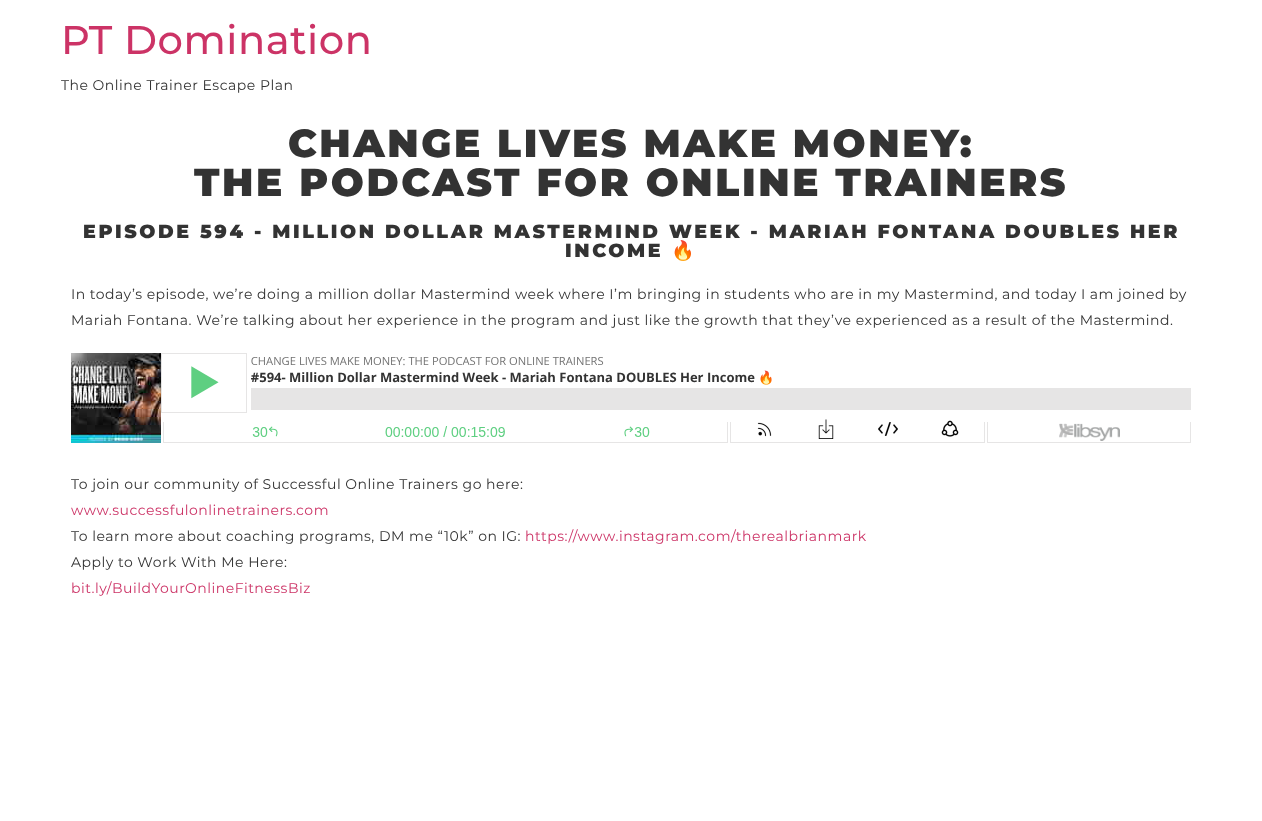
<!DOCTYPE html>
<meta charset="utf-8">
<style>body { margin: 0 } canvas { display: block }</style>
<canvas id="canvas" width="1262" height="821"></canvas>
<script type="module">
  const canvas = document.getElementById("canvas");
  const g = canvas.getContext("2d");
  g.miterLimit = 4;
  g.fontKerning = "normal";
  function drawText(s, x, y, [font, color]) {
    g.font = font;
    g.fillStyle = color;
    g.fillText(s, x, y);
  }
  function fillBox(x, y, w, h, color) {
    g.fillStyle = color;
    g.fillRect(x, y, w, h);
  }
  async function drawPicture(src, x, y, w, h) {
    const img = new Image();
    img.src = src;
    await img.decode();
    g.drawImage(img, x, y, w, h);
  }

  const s1 = ["500 40px Montserrat", "#CC3366"];
  const s2 = ["14px Montserrat", "#333333"];
  const s3 = ["900 39px Montserrat", "#333333"];
  const s4 = ["900 19px Montserrat", "#333333"];
  const s5 = ["bold 19px Noto Color Emoji", "#333333"];
  const s6 = ["14px Montserrat", "#CC3366"];

  fillBox(0, 0, 1262, 821, "#FFFFFF");
  g.letterSpacing = "0.5px";
  drawText("PT Domination", 61, 54, s1);
  drawText("The Online Trainer Escape Plan", 61, 90, s2);
  g.letterSpacing = "2.6px";
  drawText("CHANGE LIVES MAKE MONEY:", 288, 157, s3);
  drawText("THE PODCAST FOR ONLINE TRAINERS", 194, 196, s3);
  drawText("EPISODE 594 - MILLION DOLLAR MASTERMIND WEEK - MARIAH FONTANA DOUBLES HER", 83, 238, s4);
  drawText("INCOME", 565, 257, s4);
  drawText("🔥", 671, 257, s5);
  g.letterSpacing = "0.5px";
  drawText("In today’s episode, we’re doing a million dollar Mastermind week where I’m bringing in students who are in my Mastermind, and today I am joined by", 71, 299, s2);
  drawText("Mariah Fontana. We’re talking about her experience in the program and just like the growth that they’ve experienced as a result of the Mastermind.", 71, 325, s2);
  await drawPicture("pic1.png", 71, 353, 1120, 90);
  drawText("To join our community of Successful Online Trainers go here:", 71, 489, s2);
  drawText("www.successfulonlinetrainers.com", 71, 515, s6);
  drawText("To learn more about coaching programs, DM me “10k” on IG:", 71, 541, s2);
  drawText("https://www.instagram.com/therealbrianmark", 525, 541, s6);
  drawText("Apply to Work With Me Here:", 71, 567, s2);
  drawText("bit.ly/BuildYourOnlineFitnessBiz", 71, 593, s6);
</script>
